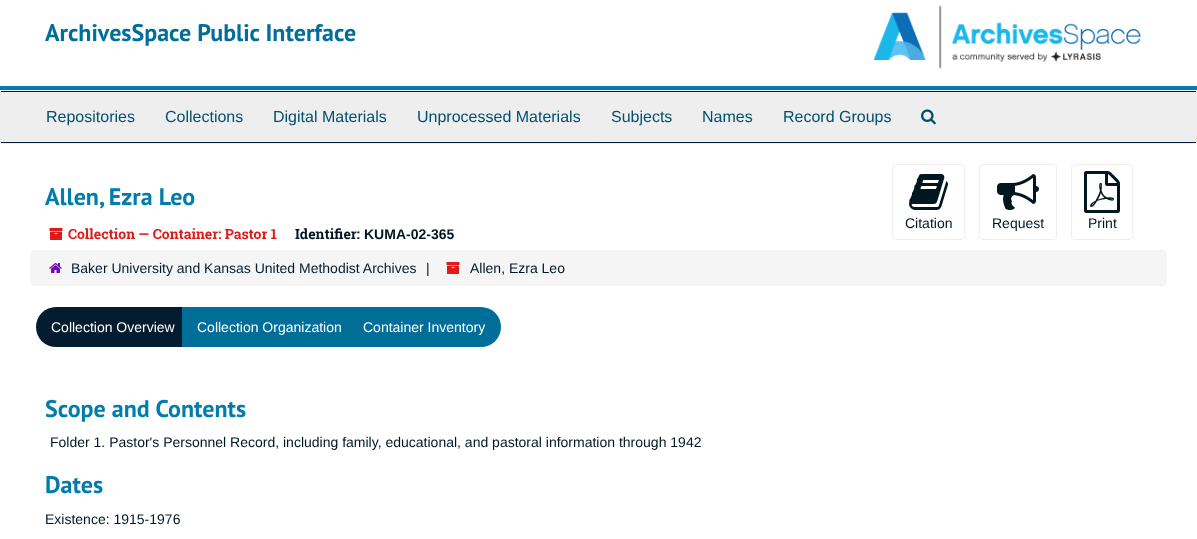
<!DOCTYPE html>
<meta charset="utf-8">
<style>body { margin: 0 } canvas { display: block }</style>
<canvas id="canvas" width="1197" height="539"></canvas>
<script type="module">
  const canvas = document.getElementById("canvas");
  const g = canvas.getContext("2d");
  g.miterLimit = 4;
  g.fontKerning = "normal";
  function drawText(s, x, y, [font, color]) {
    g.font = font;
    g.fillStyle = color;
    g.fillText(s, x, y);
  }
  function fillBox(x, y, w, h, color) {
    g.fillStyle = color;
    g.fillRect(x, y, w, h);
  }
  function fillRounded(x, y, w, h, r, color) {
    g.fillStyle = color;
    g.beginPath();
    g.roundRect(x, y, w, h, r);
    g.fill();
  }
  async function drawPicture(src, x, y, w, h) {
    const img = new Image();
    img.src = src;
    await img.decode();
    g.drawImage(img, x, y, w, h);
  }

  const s1 = ["bold 24px PT Sans", "#006E99"];
  const s2 = ["16px Liberation Sans", "#004F6F"];
  const s3 = ["bold 24px PT Sans", "#007CAD"];
  const s4 = ["bold 14px Roboto Slab", "#E01919"];
  const s5 = ["bold 14px Roboto Slab", "#00171F"];
  const s6 = ["bold 14px Liberation Sans", "#00171F"];
  const s7 = ["14px Liberation Sans", "#00171F"];
  const s8 = ["14px Liberation Sans", "#041C2F"];
  const s9 = ["14px Liberation Sans", "#FFFFFF"];

  fillBox(0, 0, 1197, 539, "#FFFFFF");
  fillBox(0, 86, 1197, 4, "#007CAD");
  drawText("ArchivesSpace Public Interface", 45, 41, s1);
  await drawPicture("pic1.png", 873, 5, 268, 64);
  g.fillStyle = "#EEEEEE";
  g.beginPath();
  g.roundRect(0.5, 90.5, 1196, 53, 3.5);
  g.fill();
  g.strokeStyle = "#EEEEEE";
  g.stroke();
  fillBox(1, 91, 1195, 1, "#041C2F");
  fillBox(1, 142, 1195, 1, "#041C2F");
  drawText("Repositories", 46, 122, s2);
  drawText("Collections", 165, 122, s2);
  drawText("Digital Materials", 273, 122, s2);
  drawText("Unprocessed Materials", 417, 122, s2);
  drawText("Subjects", 611, 122, s2);
  drawText("Names", 702, 122, s2);
  drawText("Record Groups", 783, 122, s2);
  await drawPicture("pic2.png", 921, 109, 15, 16);
  drawText("Allen, Ezra Leo", 45, 205, s3);
  await drawPicture("pic3.png", 49, 228, 14, 12);
  drawText("Collection — Container: Pastor 1", 68, 239, s4);
  drawText("Identifier:", 295, 239, s5);
  drawText("KUMA-02-365", 364, 239, s6);
  g.beginPath();
  g.roundRect(892.5, 164.5, 72, 75, 3.5);
  g.stroke();
  await drawPicture("pic4.png", 909, 174, 39, 36);
  drawText("Citation", 905, 228, s7);
  g.beginPath();
  g.roundRect(979.5, 164.5, 77, 75, 3.5);
  g.stroke();
  await drawPicture("pic5.png", 997, 174, 42, 36);
  drawText("Request", 992, 228, s7);
  g.beginPath();
  g.roundRect(1071.5, 164.5, 61, 75, 3.5);
  g.stroke();
  await drawPicture("pic6.png", 1084, 171, 36, 42);
  drawText("Print", 1088, 228, s7);
  fillRounded(30, 250, 1137, 36, 4, "#F5F5F5");
  await drawPicture("pic7.png", 49, 263, 13, 10);
  drawText("Baker University and Kansas United Methodist Archives", 71, 273, s8);
  drawText("|", 426, 273, s7);
  await drawPicture("pic8.png", 446, 262, 14, 12);
  drawText("Allen, Ezra Leo", 470, 273, s7);
  g.fillStyle = "#041C2F";
  g.beginPath();
  g.roundRect(36, 307, 154, 40, [20, 0, 0, 20]);
  g.fill();
  drawText("Collection Overview", 51, 332, s9);
  fillBox(182, 307, 166, 40, "#006E99");
  drawText("Collection Organization", 197, 332, s9);
  g.fillStyle = "#006E99";
  g.beginPath();
  g.roundRect(348, 307, 153, 40, [0, 20, 20, 0]);
  g.fill();
  drawText("Container Inventory", 363, 332, s9);
  drawText("Scope and Contents", 45, 417, s3);
  drawText("Folder 1. Pastor's Personnel Record, including family, educational, and pastoral information through 1942", 50, 447, s7);
  drawText("Dates", 45, 493, s3);
  drawText("Existence: 1915-1976", 45, 524, s7);
</script>
